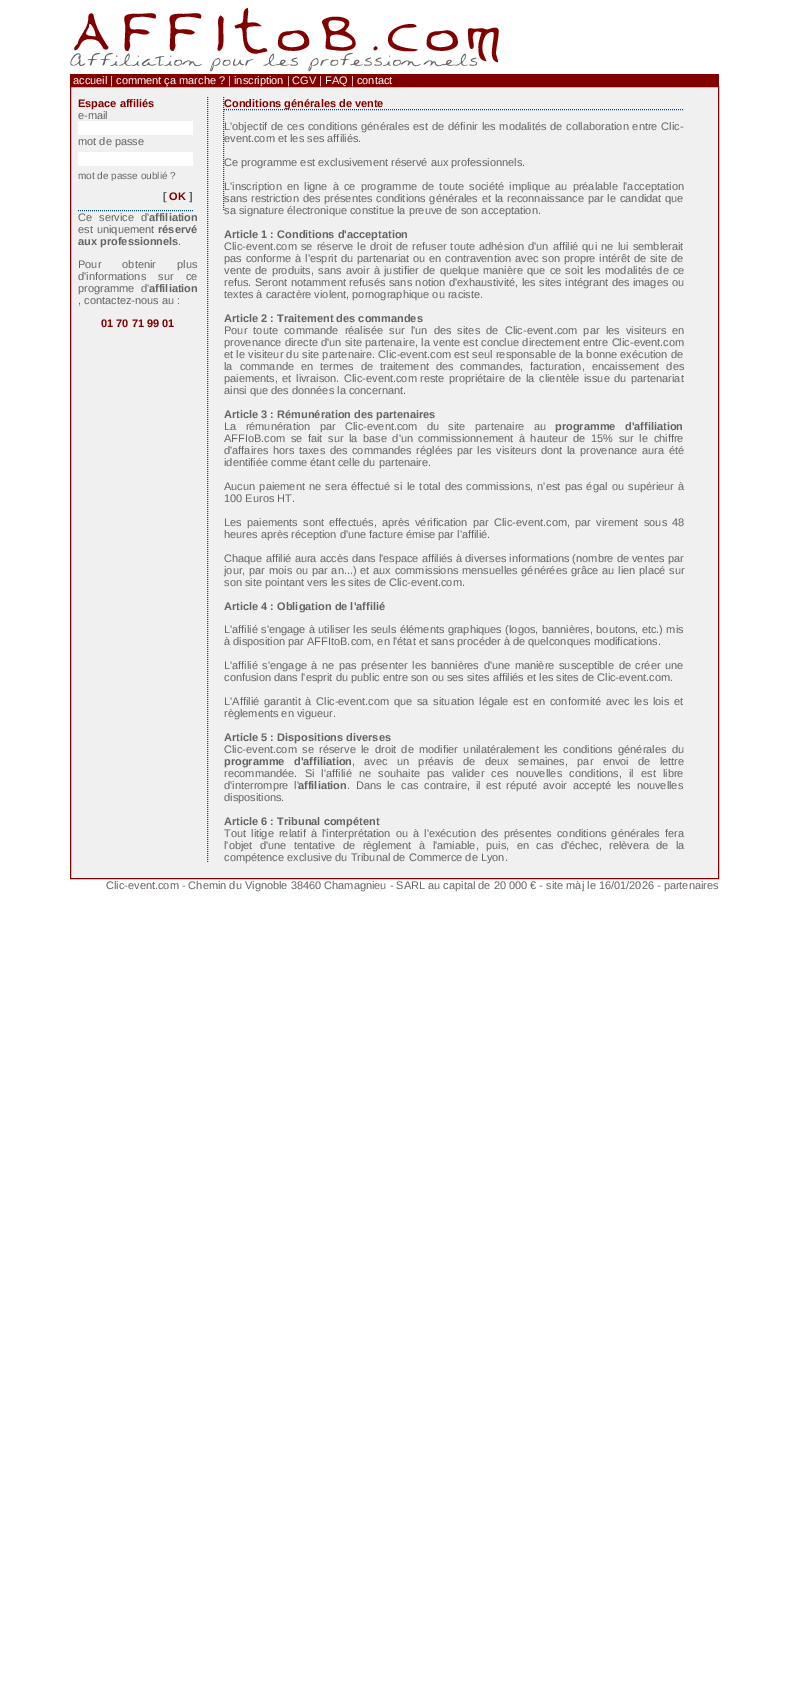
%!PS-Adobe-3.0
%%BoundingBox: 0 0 789 1688
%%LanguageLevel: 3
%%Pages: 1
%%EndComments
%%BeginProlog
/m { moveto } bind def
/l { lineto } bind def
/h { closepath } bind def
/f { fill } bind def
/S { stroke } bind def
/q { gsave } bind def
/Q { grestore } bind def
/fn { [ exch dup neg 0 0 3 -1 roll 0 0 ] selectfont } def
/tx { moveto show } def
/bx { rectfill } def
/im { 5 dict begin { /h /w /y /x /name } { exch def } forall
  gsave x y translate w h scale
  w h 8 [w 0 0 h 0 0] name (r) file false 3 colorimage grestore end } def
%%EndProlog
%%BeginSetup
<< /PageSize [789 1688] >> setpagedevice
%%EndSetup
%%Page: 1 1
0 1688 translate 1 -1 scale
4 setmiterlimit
1 setgray
0 0 789 1688 bx
(image0.raw) 70 8 429 64 im
0.51 0 0 setrgbcolor
70 74 649 12 bx
0.941 setgray
70.5 86.5 m 718.5 86.5 l 718.5 878.5 l 70.5 878.5 l h q f Q
0.51 0 0 setrgbcolor
S
/LiberationSans-Regular 11 fn
1 setgray
(accueil | comment ça marche ? | inscription | CGV | FAQ | contact) 73 84 tx
/LiberationSans-Bold 11 fn
0.51 0 0 setrgbcolor
(Espace affiliés) 78 107 tx
/LiberationSans-Regular 11 fn
0.392 setgray
(e-mail) 78 119 tx
1 setgray
78 121 115 14 bx
0.392 setgray
(mot de passe) 78 145 tx
1 setgray
78 152 115 14 bx
/LiberationSans-Regular 10 fn
0.392 setgray
(mot de passe oublié ?) 78 179 tx
0 0.271 0.549 setrgbcolor
[1 1] 0 setdash
78 210.5 m 193 210.5 l S
/LiberationSans-Bold 11 fn
0.392 setgray
([) 163 200 tx
0.51 0 0 setrgbcolor
(OK) 169 200 tx
0.392 setgray
(]) 189 200 tx
0 0.271 0.549 setrgbcolor
207.5 97 m 207.5 863 l S
223.5 97 m 223.5 211 l S
224 109.5 m 684 109.5 l S
0.51 0 0 setrgbcolor
(Conditions générales de vente) 224 107 tx
/LiberationSans-Regular 11 fn
0.392 setgray
224 130 m 0.75 0 32 (L'objectif de ces conditions générales est de définir les modalités de collaboration entre Clic-) widthshow
(event.com et les ses affiliés.) 224 142 tx
(Ce programme est exclusivement réservé aux professionnels.) 224 166 tx
224 190 m 2.1 0 32 (L'inscription en ligne à ce programme de toute société implique au préalable l'acceptation) widthshow
224 202 m 0.75 0 32 (sans restriction des présentes conditions générales et la reconnaissance par le candidat que) widthshow
(sa signature électronique constitue la preuve de son acceptation.) 224 214 tx
/LiberationSans-Bold 11 fn
(Article 1 : Conditions d'acceptation) 224 238 tx
/LiberationSans-Regular 11 fn
224 250 m 1.1 0 32 (Clic-event.com se réserve le droit de refuser toute adhésion d'un affilié qui ne lui semblerait) widthshow
224 262 m 0.8 0 32 (pas conforme à l'esprit du partenariat ou en contravention avec son propre intérêt de site de) widthshow
224 274 m 1.2 0 32 (vente de produits, sans avoir à justifier de quelque manière que ce soit les modalités de ce) widthshow
224 286 m 0.4 0 32 (refus. Seront notamment refusés sans notion d'exhaustivité, les sites intégrant des images ou) widthshow
(textes à caractère violent, pornographique ou raciste.) 224 298 tx
/LiberationSans-Bold 11 fn
(Article 2 : Traitement des commandes) 224 322 tx
/LiberationSans-Regular 11 fn
224 334 m 3.1 0 32 (Pour toute commande réalisée sur l'un des sites de Clic-event.com par les visiteurs en) widthshow
224 346 m 0.25 0 32 (provenance directe d'un site partenaire, la vente est conclue directement entre Clic-event.com) widthshow
224 358 m 0.25 0 32 (et le visiteur du site partenaire. Clic-event.com est seul responsable de la bonne exécution de) widthshow
224 370 m 3.9 0 32 (la commande en termes de traitement des commandes, facturation, encaissement des) widthshow
224 382 m 1.5 0 32 (paiements, et livraison. Clic-event.com) widthshow
420 382 m 1.5 0 32 (reste propriétaire de la clientèle issue du partenariat) widthshow
(ainsi que des données la concernant.) 224 394 tx
/LiberationSans-Bold 11 fn
(Article 3 : Rémunération des partenaires) 224 418 tx
/LiberationSans-Regular 11 fn
224 430 m 6.25 0 32 (La rémunération par Clic-event.com du site partenaire au) widthshow
/LiberationSans-Bold 11 fn
555 430 m 6.25 0 32 (programme d'affiliation) widthshow
/LiberationSans-Regular 11 fn
224 442 m 2.5 0 32 (AFFIoB.com se fait sur la base d'un commissionnement à hauteur de 15% sur le chiffre) widthshow
224 454 m 1.5 0 32 (d'affaires hors taxes des commandes réglées par les visiteurs dont la provenance aura été) widthshow
(identifiée comme étant celle du partenaire.) 224 466 tx
224 490 m 1.2 0 32 (Aucun paiement ne sera éffectué si le total des commissions, n'est pas égal ou supérieur à) widthshow
(100 Euros HT.) 224 502 tx
224 526 m 2.25 0 32 (Les paiements sont effectués, après vérification par Clic-event.com, par virement sous 48) widthshow
(heures après réception d'une facture émise par l'affilié.) 224 538 tx
224 562 m 0.1 0 32 (Chaque affilié aura accès dans l'espace affiliés à diverses informations \(nombre de ventes par) widthshow
224 574 m 0.7 0 32 (jour, par mois ou par an...\) et aux commissions mensuelles générées grâce au lien placé sur) widthshow
(son site pointant vers les sites de Clic-event.com.) 224 586 tx
/LiberationSans-Bold 11 fn
(Article 4 : Obligation de l'affilié) 224 610 tx
/LiberationSans-Regular 11 fn
224 633 m 0.25 0 32 (L'affilié s'engage à utiliser les seuls éléments graphiques \(logos, bannières, boutons, etc.\) mis) widthshow
(à disposition par AFFItoB.com, en l'état et sans procéder à de quelconques modifications.) 224 645 tx
224 669 m 1.5 0 32 (L'affilié s'engage à ne pas présenter les bannières d'une manière susceptible de créer une) widthshow
(confusion dans l'esprit du public entre son ou ses sites affiliés et les sites de Clic-event.com.) 224 681 tx
224 705 m 1.75 0 32 (L'Affilié garantit à Clic-event.com que sa situation légale est en conformité avec les lois et) widthshow
(règlements en vigueur.) 224 717 tx
/LiberationSans-Bold 11 fn
(Article 5 : Dispositions diverses) 224 741 tx
/LiberationSans-Regular 11 fn
224 753 m 2.25 0 32 (Clic-event.com se réserve le droit de modifier unilatéralement les conditions générales du) widthshow
/LiberationSans-Bold 11 fn
224 765 m 6.25 0 32 (programme d'affiliation) widthshow
/LiberationSans-Regular 11 fn
352 765 m 6.25 0 32 (, avec un préavis de deux semaines, par envoi de lettre) widthshow
224 777 m 4.1 0 32 (recommandée. Si l'affilié ne souhaite pas valider ces nouvelles conditions, il est libre) widthshow
224 789 m 2.6 0 32 (d'interrompre l') widthshow
/LiberationSans-Bold 11 fn
(affiliation) 298 789 tx
/LiberationSans-Regular 11 fn
347 789 m 2.6 0 32 (. Dans le cas contraire, il est réputé avoir accepté les nouvelles) widthshow
(dispositions.) 224 801 tx
/LiberationSans-Bold 11 fn
(Article 6 : Tribunal compétent) 224 825 tx
/LiberationSans-Regular 11 fn
224 837 m 2 0 32 (Tout litige relatif à l'interprétation ou à l'exécution des présentes conditions générales fera) widthshow
224 849 m 4.4 0 32 (l'objet d'une tentative de règlement à l'amiable, puis, en cas d'échec, relèvera de la) widthshow
(compétence exclusive du Tribunal de Commerce de Lyon.) 224 861 tx
78 221 m 3.9 0 32 (Ce service d') widthshow
/LiberationSans-Bold 11 fn
(affiliation) 149 221 tx
/LiberationSans-Regular 11 fn
78 233 m 1 0 32 (est uniquement) widthshow
/LiberationSans-Bold 11 fn
(réservé) 158 233 tx
(aux professionnels) 78 245 tx
/LiberationSans-Regular 11 fn
(.) 178 245 tx
78 268 m 18 0 32 (Pour obtenir plus) widthshow
78 280 m 9 0 32 (d'informations sur ce) widthshow
78 292 m 4 0 32 (programme d') widthshow
/LiberationSans-Bold 11 fn
(affiliation) 149 292 tx
/LiberationSans-Regular 11 fn
(, contactez-nous au :) 78 304 tx
/LiberationSans-Bold 11 fn
0.51 0 0 setrgbcolor
(01 70 71 99 01) 101 327 tx
/LiberationSans-Regular 11 fn
0.392 setgray
(Clic-event.com - Chemin du Vignoble 38460 Chamagnieu - SARL au capital de 20 000 € - site màj le 16/01/2026 - partenaires) 106 889 tx
showpage
%%EOF
